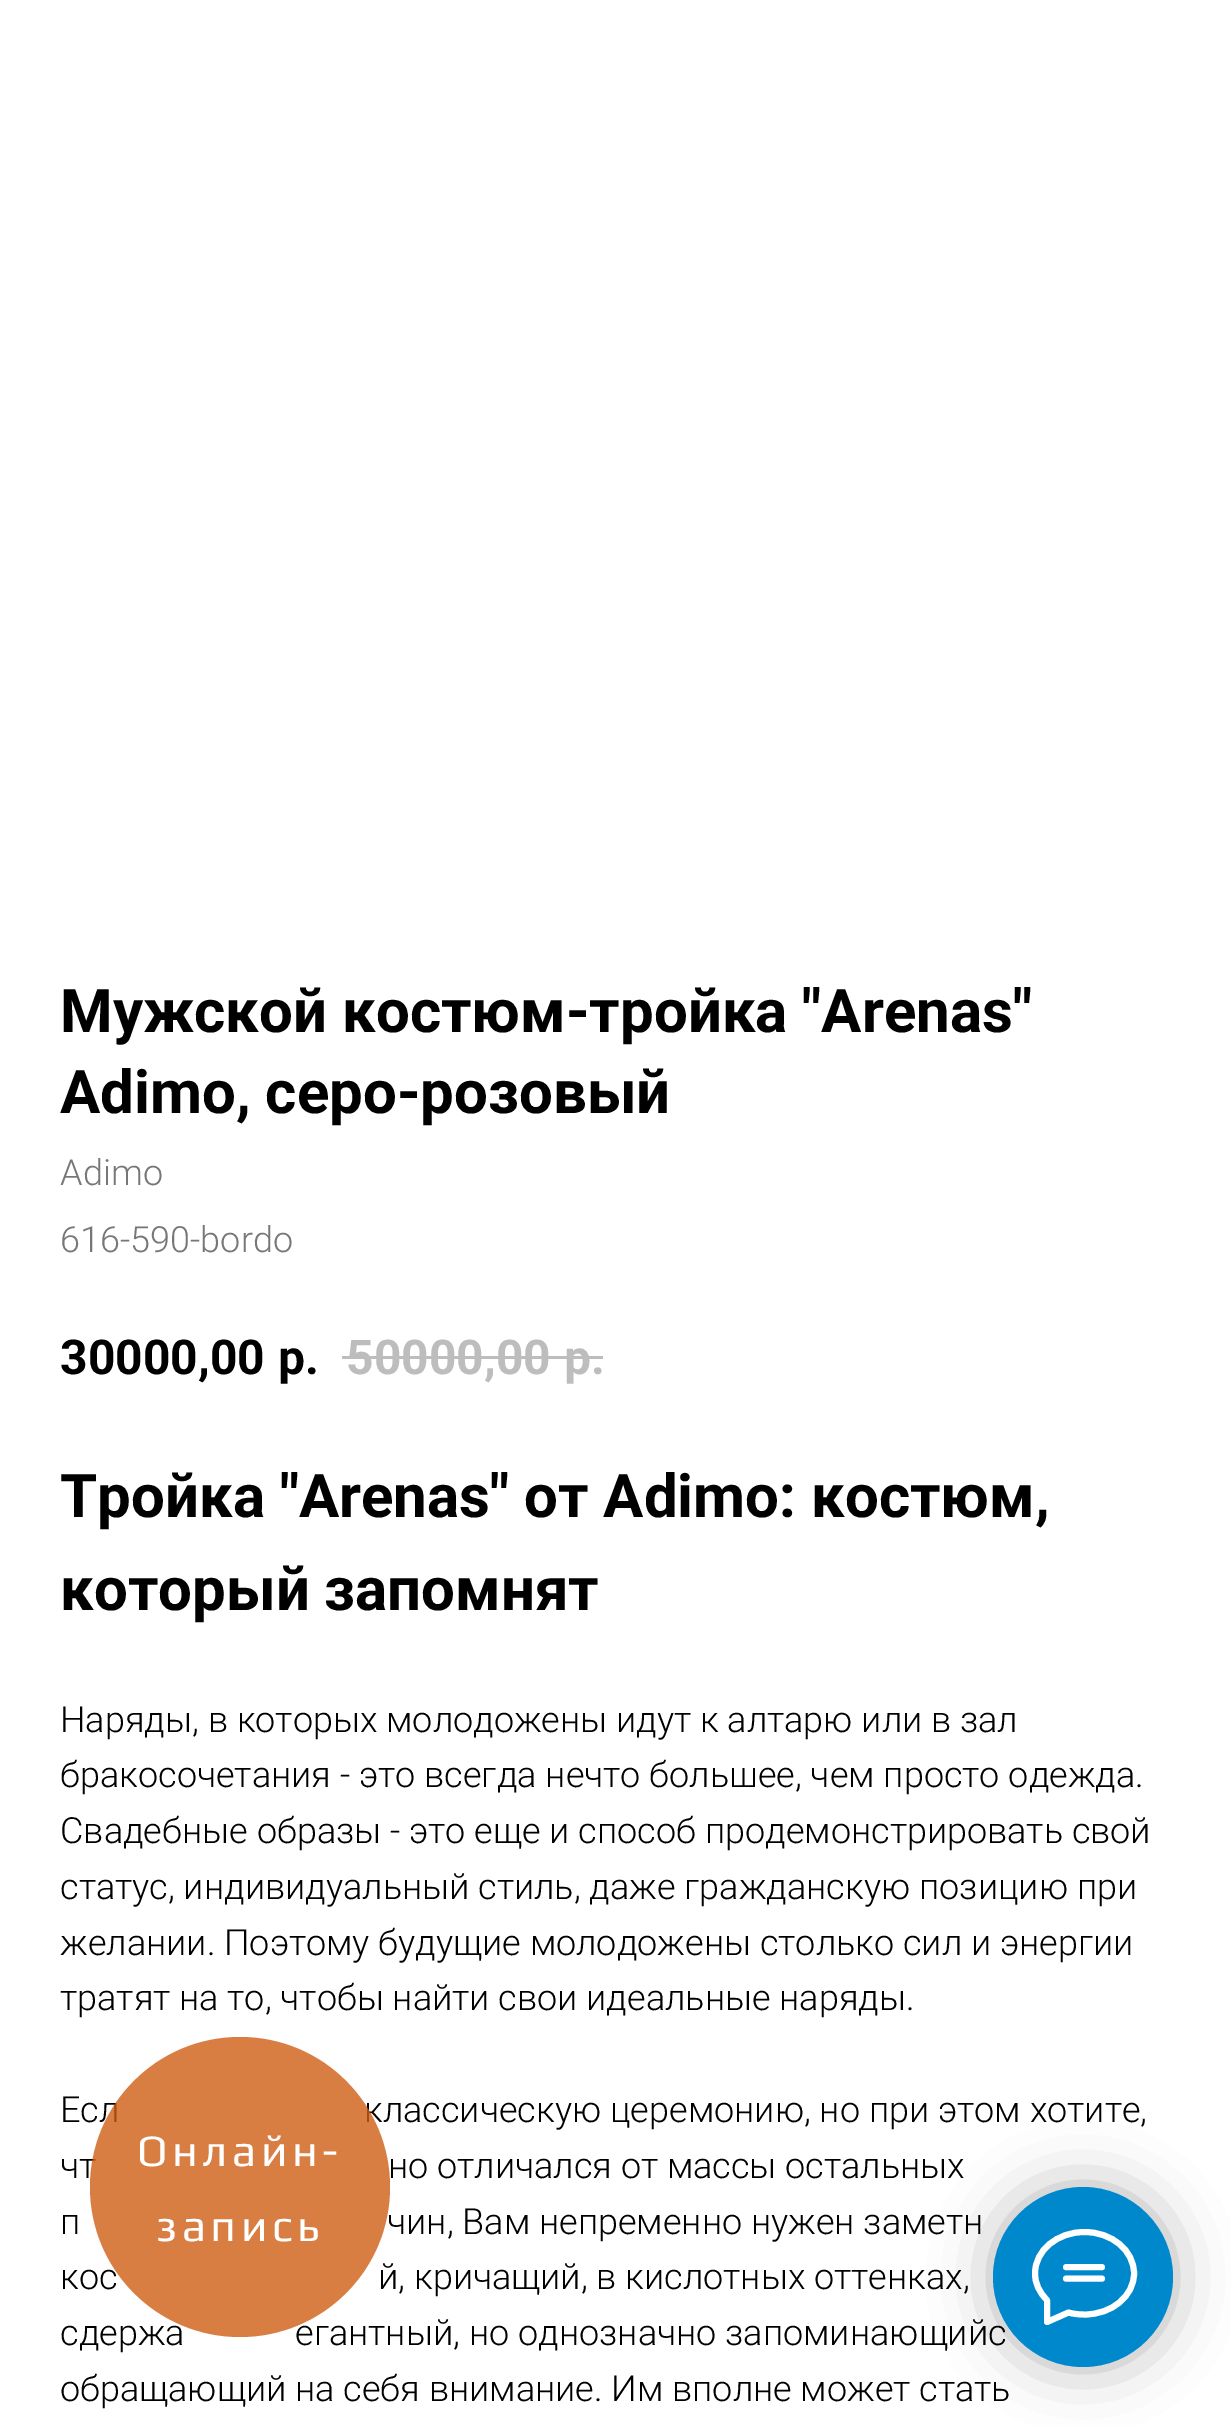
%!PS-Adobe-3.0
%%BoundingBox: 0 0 1231 2425
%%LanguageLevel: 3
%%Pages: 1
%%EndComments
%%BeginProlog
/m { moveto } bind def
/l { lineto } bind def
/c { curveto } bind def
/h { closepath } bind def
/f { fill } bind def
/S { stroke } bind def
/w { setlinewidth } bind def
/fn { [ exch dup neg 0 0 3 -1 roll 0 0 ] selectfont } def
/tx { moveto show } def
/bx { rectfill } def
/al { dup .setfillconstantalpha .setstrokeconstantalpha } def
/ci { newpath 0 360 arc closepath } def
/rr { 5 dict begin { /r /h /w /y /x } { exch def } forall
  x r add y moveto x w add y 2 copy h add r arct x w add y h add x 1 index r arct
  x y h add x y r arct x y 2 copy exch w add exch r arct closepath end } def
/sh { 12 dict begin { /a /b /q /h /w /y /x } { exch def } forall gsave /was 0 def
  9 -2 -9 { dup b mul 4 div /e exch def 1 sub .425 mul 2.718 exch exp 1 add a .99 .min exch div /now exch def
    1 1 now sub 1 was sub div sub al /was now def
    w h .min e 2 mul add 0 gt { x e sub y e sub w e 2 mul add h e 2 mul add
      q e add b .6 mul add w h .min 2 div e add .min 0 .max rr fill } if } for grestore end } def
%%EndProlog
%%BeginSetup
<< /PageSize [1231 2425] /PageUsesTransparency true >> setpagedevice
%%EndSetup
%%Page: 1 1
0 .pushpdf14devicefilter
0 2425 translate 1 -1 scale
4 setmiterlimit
1 setgray
0 0 1231 2425 bx
/Roboto-Bold 60 fn
0 setgray
(Мужской костюм-тройка "Arenas") 60 1032 tx
(Adimo, серо-розовый) 60 1113 tx
/Roboto-Light 36 fn
0.467 setgray
(Adimo) 60 1185 tx
(616-590-bordo) 60 1252 tx
/Roboto-Bold 48 fn
0 setgray
(30000,00) 60 1374 tx
(р.) 278 1374 tx
0.741 setgray
(50000,00) 346 1374 tx
(р.) 564 1374 tx
342 1356 261 3 bx
/Roboto-Bold 60 fn
0 setgray
(Тройка "Arenas" от Adimo: костюм,) 60 1517 tx
(который запомнят) 60 1610 tx
/Roboto-Light 36 fn
(Наряды, в которых молодожены идут к алтарю или в зал) 60 1732 tx
(бракосочетания - это всегда нечто большее, чем просто одежда.) 60 1787 tx
(Свадебные образы - это еще и способ продемонстрировать свой) 60 1843 tx
(статус, индивидуальный стиль, даже гражданскую позицию при) 60 1899 tx
(желании. Поэтому будущие молодожены столько сил и энергии) 60 1955 tx
(тратят на то, чтобы найти свои идеальные наряды.) 60 2010 tx
(Есл) 60 2122 tx
(классическую церемонию, но при этом хотите,) 364 2122 tx
(чт) 60 2178 tx
(но отличался от массы остальных) 388 2178 tx
(п) 60 2234 tx
(чин, Вам непременно нужен заметн) 387 2234 tx
(кос) 60 2289 tx
(й, кричащий, в кислотных оттенках,) 378 2289 tx
(сдержа) 60 2345 tx
(егантный, но однозначно запоминающийс) 295 2345 tx
(обращающий на себя внимание. Им вполне может стать) 60 2401 tx
993 2187 180 180 90 30 0.3 sh
0 0.533 0.8 setrgbcolor
1083 2277 90 ci f
1 setgray
6 w
1 setlinecap
1 setlinejoin
1066 2267 m 1102 2267 l 1066 2278.5 m 1102 2278.5 l 1046.5 2299.5 m 1039.5 2292.5 1035 2283.5 1035 2273.5 c 1035 2250.5 1057 2232 1084.5 2232 c 1112 2232 1134 2250.5 1134 2273.5 c 1134 2296 1112 2314.5 1084.5 2314.5 c 1079 2314.5 1073.5 2314 1068.5 2312.5 c 1047 2322 l 1047 2300.5 l h S
0.8 al
0.808 0.369 0.075 setrgbcolor
240 2187 150 ci f
/Play-Regular 45 fn
1 al
1 setgray
137 2166 m 4.5 0 (Онлайн-) ashow
156 2241 m 4.5 0 (запись) ashow
.poppdf14devicefilter showpage
%%EOF
